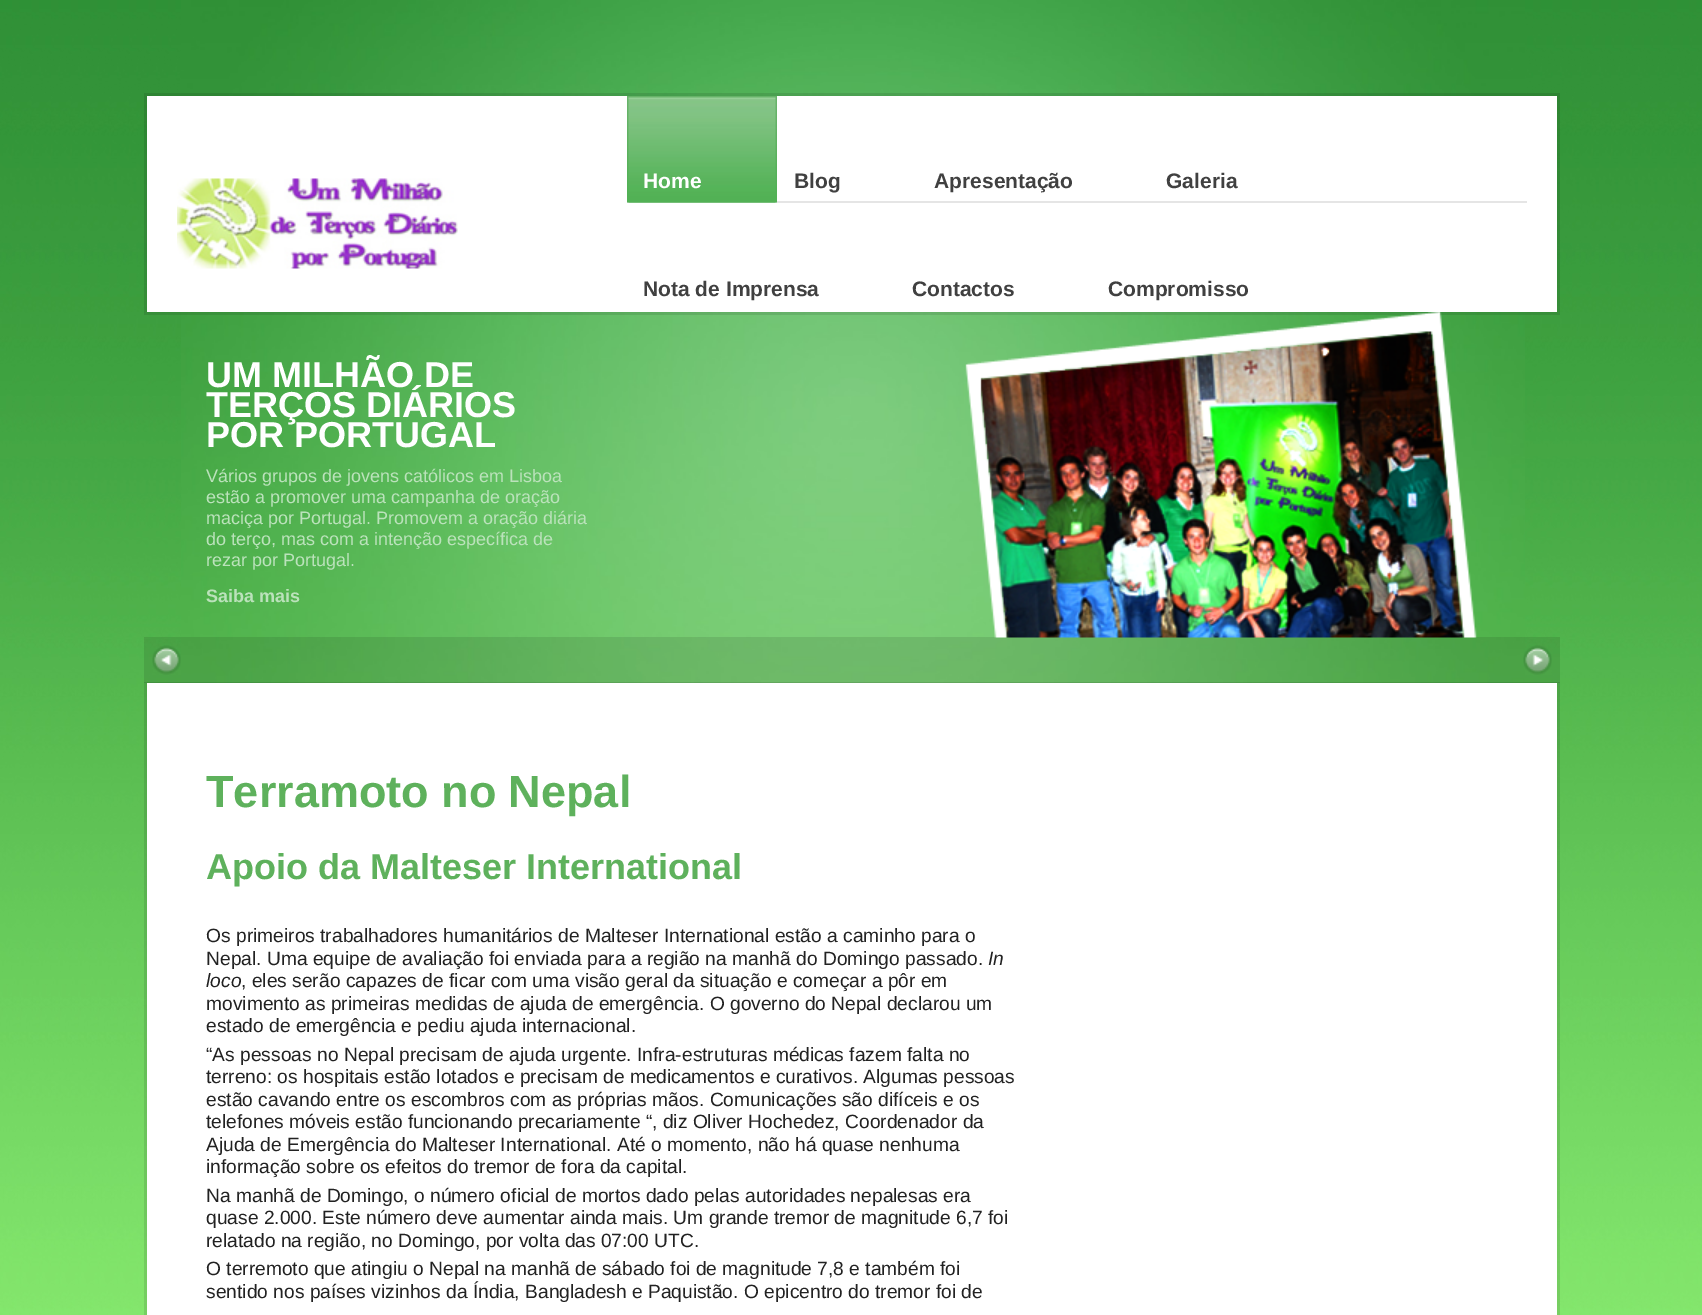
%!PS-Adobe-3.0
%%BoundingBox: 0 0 1702 1315
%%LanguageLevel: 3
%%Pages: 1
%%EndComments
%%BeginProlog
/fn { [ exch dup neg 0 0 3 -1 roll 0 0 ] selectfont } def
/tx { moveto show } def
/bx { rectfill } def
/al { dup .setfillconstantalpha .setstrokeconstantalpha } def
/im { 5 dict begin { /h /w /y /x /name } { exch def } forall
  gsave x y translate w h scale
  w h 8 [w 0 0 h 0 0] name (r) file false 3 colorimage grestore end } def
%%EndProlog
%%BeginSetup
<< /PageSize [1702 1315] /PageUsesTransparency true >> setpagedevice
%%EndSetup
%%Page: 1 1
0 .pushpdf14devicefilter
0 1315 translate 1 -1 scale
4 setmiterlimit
1 setgray
0 0 1702 1315 bx
(image0.raw) 0 0 1702 1315 im
(image1.raw) 181 0 1344 683 im
0.1 al
0 setgray
144 93 1416 222 bx
1 al
1 setgray
147 96 1410 216 bx
(image2.raw) 177 178 281 91 im
0.898 setgray
627 201 900 2 bx
(image3.raw) 627 96 150 107 im
(image4.raw) 628 97 148 106 im
/LiberationSans-Bold 21 fn
1 setgray
(Home) 643 188 tx
0.251 setgray
(Blog) 794 188 tx
(Apresentação) 934 188 tx
(Galeria) 1166 188 tx
(Nota de Imprensa) 643 296 tx
(Contactos) 912 296 tx
(Compromisso) 1108 296 tx
/LiberationSans-Bold 36 fn
1 setgray
(UM MILHÃO DE) 206 387 tx
(TERÇOS DIÁRIOS) 206 417 tx
(POR PORTUGAL) 206 447 tx
/LiberationSans-Regular 18 fn
0.733 0.886 0.733 setrgbcolor
(Vários grupos de jovens católicos em Lisboa) 206 482 tx
(estão a promover uma campanha de oração) 206 503 tx
(maciça por Portugal. Promovem a oração diária) 206 524 tx
(do terço, mas com a intenção específica de) 206 545 tx
(rezar por Portugal.) 206 566 tx
/LiberationSans-Bold 18 fn
(Saiba mais) 206 602 tx
0.1 al
0 setgray
144 637 1416 46 bx
1 al
(image5.raw) 965 312 512 326 im
(image6.raw) 152 645 29 30 im
(image7.raw) 1523 645 29 30 im
0.1 al
144 682 1416 633 bx
1 al
1 setgray
147 683 1410 632 bx
/LiberationSans-Bold 45 fn
0.369 0.694 0.361 setrgbcolor
(Terramoto no Nepal) 206 807 tx
/LiberationSans-Bold 36 fn
(Apoio da Malteser International) 206 879 tx
/LiberationSans-Regular 19.2 fn
0.133 setgray
(Os primeiros trabalhadores humanitários de Malteser International estão a caminho para o) 206 942 tx
(Nepal. Uma equipe de avaliação foi enviada para a região na manhã do Domingo passado.) 206 965 tx
/LiberationSans-Italic 19.2 fn
(In) 988 965 tx
(loco) 206 987 tx
/LiberationSans-Regular 19.2 fn
(, eles serão capazes de ficar com uma visão geral da situação e começar a pôr em) 241 987 tx
(movimento as primeiras medidas de ajuda de emergência. O governo do Nepal declarou um) 206 1010 tx
(estado de emergência e pediu ajuda internacional.) 206 1032 tx
(“As pessoas no Nepal precisam de ajuda urgente. Infra-estruturas médicas fazem falta no) 206 1061 tx
(terreno: os hospitais estão lotados e precisam de medicamentos e curativos. Algumas pessoas) 206 1083 tx
(estão cavando entre os escombros com as próprias mãos. Comunicações são difíceis e os) 206 1106 tx
(telefones móveis estão funcionando precariamente “, diz Oliver Hochedez, Coordenador da) 206 1128 tx
(Ajuda de Emergência do Malteser International. Até o momento, não há quase nenhuma) 206 1151 tx
(informação sobre os efeitos do tremor de fora da capital.) 206 1173 tx
(Na manhã de Domingo, o número oficial de mortos dado pelas autoridades nepalesas era) 206 1202 tx
(quase 2.000. Este número deve aumentar ainda mais. Um grande tremor de magnitude 6,7 foi) 206 1224 tx
(relatado na região, no Domingo, por volta das 07:00 UTC.) 206 1247 tx
(O terremoto que atingiu o Nepal na manhã de sábado foi de magnitude 7,8 e também foi) 206 1275 tx
(sentido nos países vizinhos da Índia, Bangladesh e Paquistão. O epicentro do tremor foi de) 206 1298 tx
.poppdf14devicefilter showpage
%%EOF
